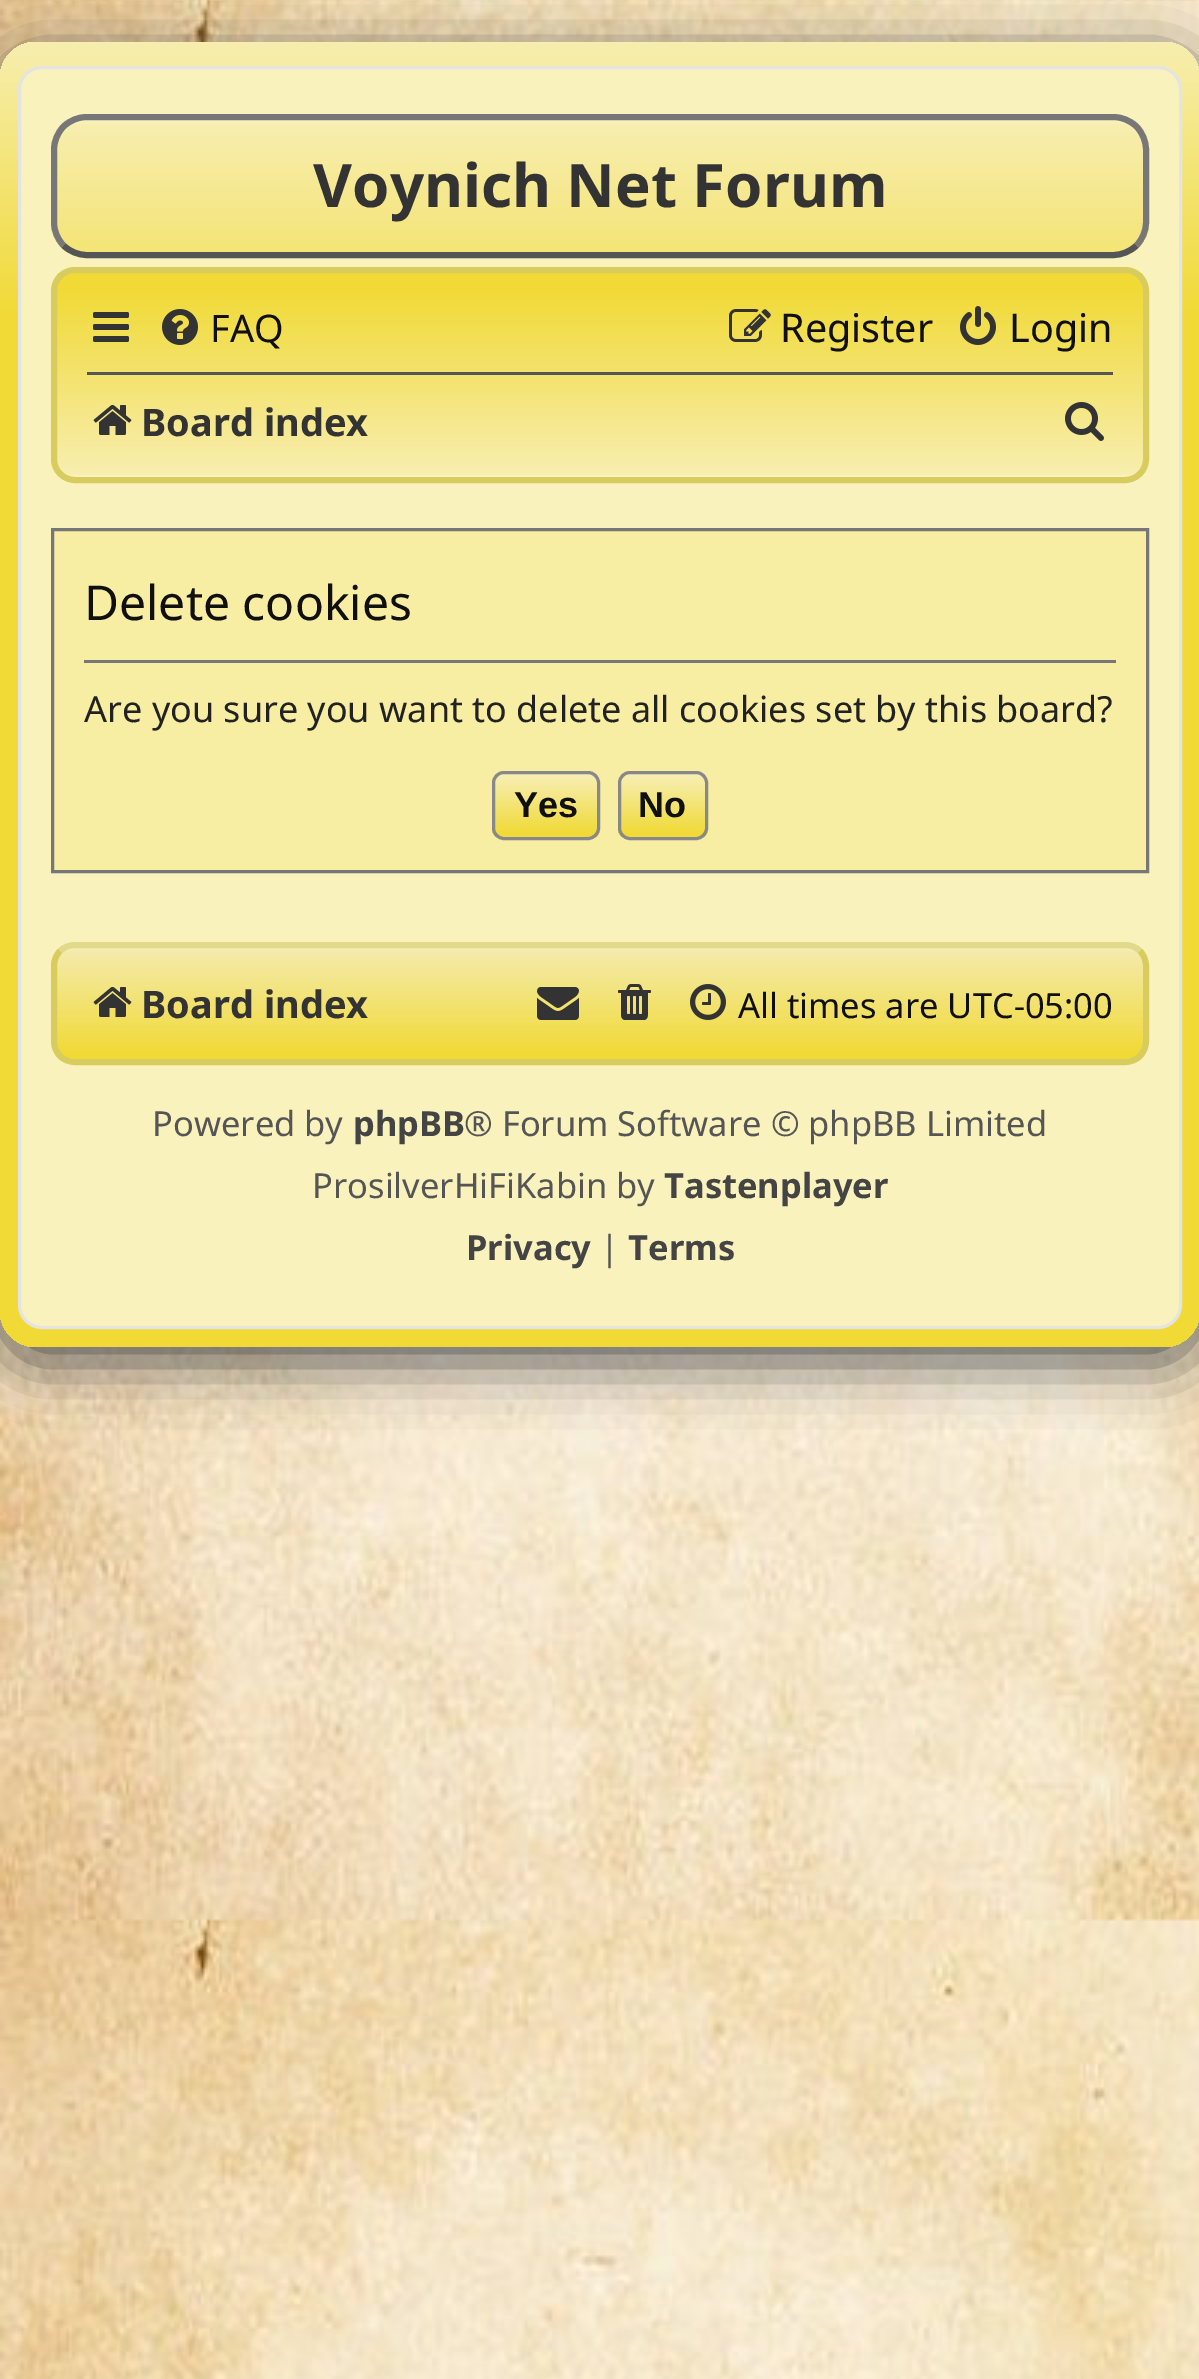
%!PS-Adobe-3.0
%%BoundingBox: 0 0 1199 2379
%%LanguageLevel: 3
%%Pages: 1
%%EndComments
%%BeginProlog
/m { moveto } bind def
/l { lineto } bind def
/c { curveto } bind def
/h { closepath } bind def
/f { fill } bind def
/S { stroke } bind def
/q { gsave } bind def
/Q { grestore } bind def
/w { setlinewidth } bind def
/fn { [ exch dup neg 0 0 3 -1 roll 0 0 ] selectfont } def
/tx { moveto show } def
/bx { rectfill } def
/al { dup .setfillconstantalpha .setstrokeconstantalpha } def
/rr { 5 dict begin { /r /h /w /y /x } { exch def } forall
  x r add y moveto x w add y 2 copy h add r arct x w add y h add x 1 index r arct
  x y h add x y r arct x y 2 copy exch w add exch r arct closepath end } def
/sh { 12 dict begin { /a /b /q /h /w /y /x } { exch def } forall gsave /was 0 def
  9 -2 -9 { dup b mul 4 div /e exch def 1 sub .425 mul 2.718 exch exp 1 add a .99 .min exch div /now exch def
    1 1 now sub 1 was sub div sub al /was now def
    w h .min e 2 mul add 0 gt { x e sub y e sub w e 2 mul add h e 2 mul add
      q e add b .6 mul add w h .min 2 div e add .min 0 .max rr fill } if } for grestore end } def
/im { 5 dict begin { /h /w /y /x /name } { exch def } forall
  gsave x y translate w h scale
  w h 8 [w 0 0 h 0 0] name (r) file false 3 colorimage grestore end } def
%%EndProlog
%%BeginSetup
<< /PageSize [1199 2379] /PageUsesTransparency true >> setpagedevice
%%EndSetup
%%Page: 1 1
0 .pushpdf14devicefilter
0 2379 translate 1 -1 scale
4 setmiterlimit
1 setgray
0 0 1199 2379 bx
(image0.raw) 0 0 1199 2379 im
(image1.raw) 0 42 1199 1305 im
0.333 setgray
0 57 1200 1305 36 30 1 sh
q 0 42 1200 1305 36 rr clip newpath
<< /ShadingType 2 /ColorSpace /DeviceRGB /Coords [600 42 600 1347] /Extend [true true] /Function << /FunctionType 3 /Domain [0 1] /Functions [<< /FunctionType 2 /Domain [0 1] /C0 [0.969 0.933 0.686] /C1 [0.945 0.855 0.212] /N 1 >> << /FunctionType 2 /Domain [0 1] /C0 [0.945 0.855 0.212] /C1 [0.945 0.855 0.212] /N 1 >>] /Bounds [0.21] /Encode [0 1 0 1] >> >> shfill Q
0.98 0.949 0.737 setrgbcolor
19.5 67.5 1161 1260 22.5 rr q f Q
0.894 setgray
3 w
S
q
51 114 1098 144 36 rr clip newpath
q 51 120 m 1149 120 l 1149 252 l 51 252 l h clip newpath
<< /ShadingType 2 /ColorSpace /DeviceRGB /Coords [600 120 600 396] /Extend [true true] /Function << /FunctionType 3 /Domain [0 1] /Functions [<< /FunctionType 2 /Domain [0 1] /C0 [0.976 0.953 0.753] /C1 [0.969 0.933 0.686] /N 1 >> << /FunctionType 2 /Domain [0 1] /C0 [0.969 0.933 0.686] /C1 [0.945 0.855 0.212] /N 1 >>] /Bounds [0.02] /Encode [0 1 0 1] >> >> shfill Q
Q
0.333 setgray
6 w
1136.5 245.5 m 1130 251.5 1122 255 1113 255 c 87 255 l 78 255 70 251.5 63.5 245.5 c S
0.467 setgray
63.5 245.5 m 57.5 239 54 231 54 222 c 54 150 l 54 141 57.5 133 63.5 126.5 c 70 120.5 78 117 87 117 c 1113 117 l 1122 117 1130 120.5 1136.5 126.5 c 1142.5 133 1146 141 1146 150 c 1146 222 l 1146 231 1142.5 239 1136.5 245.5 c S
/NotoSans-Bold 60 fn
0.2 setgray
(Voynich Net Forum) 313 207 tx
q
51 267 1098 216 24 rr clip newpath
q 57 273 m 1143 273 l 1143 477 l 57 477 l h clip newpath
<< /ShadingType 2 /ColorSpace /DeviceRGB /Coords [600 273 600 477] /Extend [true true] /Function << /FunctionType 3 /Domain [0 1] /Functions [<< /FunctionType 2 /Domain [0 1] /C0 [0.945 0.855 0.212] /C1 [0.945 0.855 0.212] /N 1 >> << /FunctionType 2 /Domain [0 1] /C0 [0.945 0.855 0.212] /C1 [0.969 0.933 0.686] /N 1 >> << /FunctionType 2 /Domain [0 1] /C0 [0.969 0.933 0.686] /C1 [0.976 0.953 0.753] /N 1 >>] /Bounds [0.08 0.98] /Encode [0 1 0 1 0 1] >> >> shfill Q
Q
0.847 0.8 0.373 setrgbcolor
54 270 1092 210 21 rr S
(image2.raw) 93 312 36 30 im
(image3.raw) 162 309 36 36 im
/NotoSans-Regular 38 fn
0.063 setgray
(FAQ) 210 342 tx
(image4.raw) 729 309 42 33 im
/NotoSans-Regular 39.5 fn
(Register) 780 342 tx
(image5.raw) 960 306 36 39 im
(Login) 1009 342 tx
0.333 setgray
87 372 1026 3 bx
(image6.raw) 93 404 39 31 im
/NotoSans-Bold 38 fn
0.2 setgray
(Board index) 141 436 tx
(image7.raw) 1065 402 39 39 im
0.969 0.929 0.639 setrgbcolor
52.5 529.5 m 1147.5 529.5 l 1147.5 871.5 l 52.5 871.5 l h q f Q
0.467 setgray
3 w
S
84 660 1032 3 bx
/NotoSans-Regular 48 fn
0.063 setgray
(Delete cookies) 84 620 tx
/NotoSans-Regular 36 fn
0.133 setgray
(Are you sure you want to delete all cookies set by this board?) 84 722 tx
q
492 771 108 69 12 rr clip newpath
q 492 774 m 600 774 l 600 837 l 492 837 l h clip newpath
<< /ShadingType 2 /ColorSpace /DeviceRGB /Coords [546 774 546 837] /Extend [true true] /Function << /FunctionType 3 /Domain [0 1] /Functions [<< /FunctionType 2 /Domain [0 1] /C0 [0.969 0.937 0.718] /C1 [0.945 0.855 0.212] /N 1 >> << /FunctionType 2 /Domain [0 1] /C0 [0.945 0.855 0.212] /C1 [0.945 0.855 0.212] /N 1 >>] /Bounds [0.95] /Encode [0 1 0 1] >> >> shfill Q
Q
0.533 setgray
493.5 772.5 105 66 10.5 rr S
/LiberationSans-Bold 36 fn
0.063 setgray
(Yes) 514 817 tx
q
618 771 90 69 12 rr clip newpath
q 618 774 m 708 774 l 708 837 l 618 837 l h clip newpath
<< /ShadingType 2 /ColorSpace /DeviceRGB /Coords [663 774 663 837] /Extend [true true] /Function << /FunctionType 3 /Domain [0 1] /Functions [<< /FunctionType 2 /Domain [0 1] /C0 [0.969 0.937 0.718] /C1 [0.945 0.855 0.212] /N 1 >> << /FunctionType 2 /Domain [0 1] /C0 [0.945 0.855 0.212] /C1 [0.945 0.855 0.212] /N 1 >>] /Bounds [0.95] /Encode [0 1 0 1] >> >> shfill Q
Q
0.533 setgray
619.5 772.5 87 66 10.5 rr S
0.063 setgray
(No) 638 817 tx
q
51 942 1098 123 24 rr clip newpath
q 57 948 m 1143 948 l 1143 1059 l 57 1059 l h clip newpath
<< /ShadingType 2 /ColorSpace /DeviceRGB /Coords [600 948 600 1059] /Extend [true true] /Function << /FunctionType 3 /Domain [0 1] /Functions [<< /FunctionType 2 /Domain [0 1] /C0 [0.969 0.937 0.718] /C1 [0.957 0.922 0.678] /N 1 >> << /FunctionType 2 /Domain [0 1] /C0 [0.957 0.922 0.678] /C1 [0.945 0.855 0.212] /N 1 >> << /FunctionType 2 /Domain [0 1] /C0 [0.945 0.855 0.212] /C1 [0.945 0.855 0.212] /N 1 >>] /Bounds [0.02 0.95] /Encode [0 1 0 1 0 1] >> >> shfill Q
Q
0.886 0.855 0.545 setrgbcolor
6 w
60 951 m 64 947 69.5 945 75 945 c 1125 945 l 1130.5 945 1136 947 1140 951 c S
0.847 0.8 0.373 setrgbcolor
1140 951 m 1144 955 1146 960.5 1146 966 c 1146 1041 l 1146 1046.5 1144 1052 1140 1056 c 1136 1060 1130.5 1062 1125 1062 c 75 1062 l 69.5 1062 64 1060 60 1056 c 56 1052 54 1046.5 54 1041 c 54 966 l 54 960.5 56 955 60 951 c S
(image8.raw) 93 986 39 31 im
/NotoSans-Bold 38 fn
0.2 setgray
(Board index) 141 1018 tx
(image9.raw) 537 987 42 33 im
(image10.raw) 618 984 33 36 im
(image11.raw) 690 984 36 36 im
/NotoSans-Regular 34.5 fn
0.063 setgray
(All times are UTC-05:00) 738 1018 tx
0.333 setgray
(Powered by) 152 1136 tx
/NotoSans-Bold 34.5 fn
0.267 setgray
(phpBB) 353 1136 tx
/NotoSans-Regular 34.5 fn
0.333 setgray
(® Forum Software © phpBB Limited) 464 1136 tx
(ProsilverHiFiKabin by) 312 1198 tx
/NotoSans-Bold 34.5 fn
0.267 setgray
(Tastenplayer) 664 1198 tx
(Privacy) 466 1260 tx
/NotoSans-Regular 34.5 fn
0.333 setgray
(|) 600 1260 tx
/NotoSans-Bold 34.5 fn
0.267 setgray
(Terms) 628 1260 tx
.poppdf14devicefilter showpage
%%EOF
